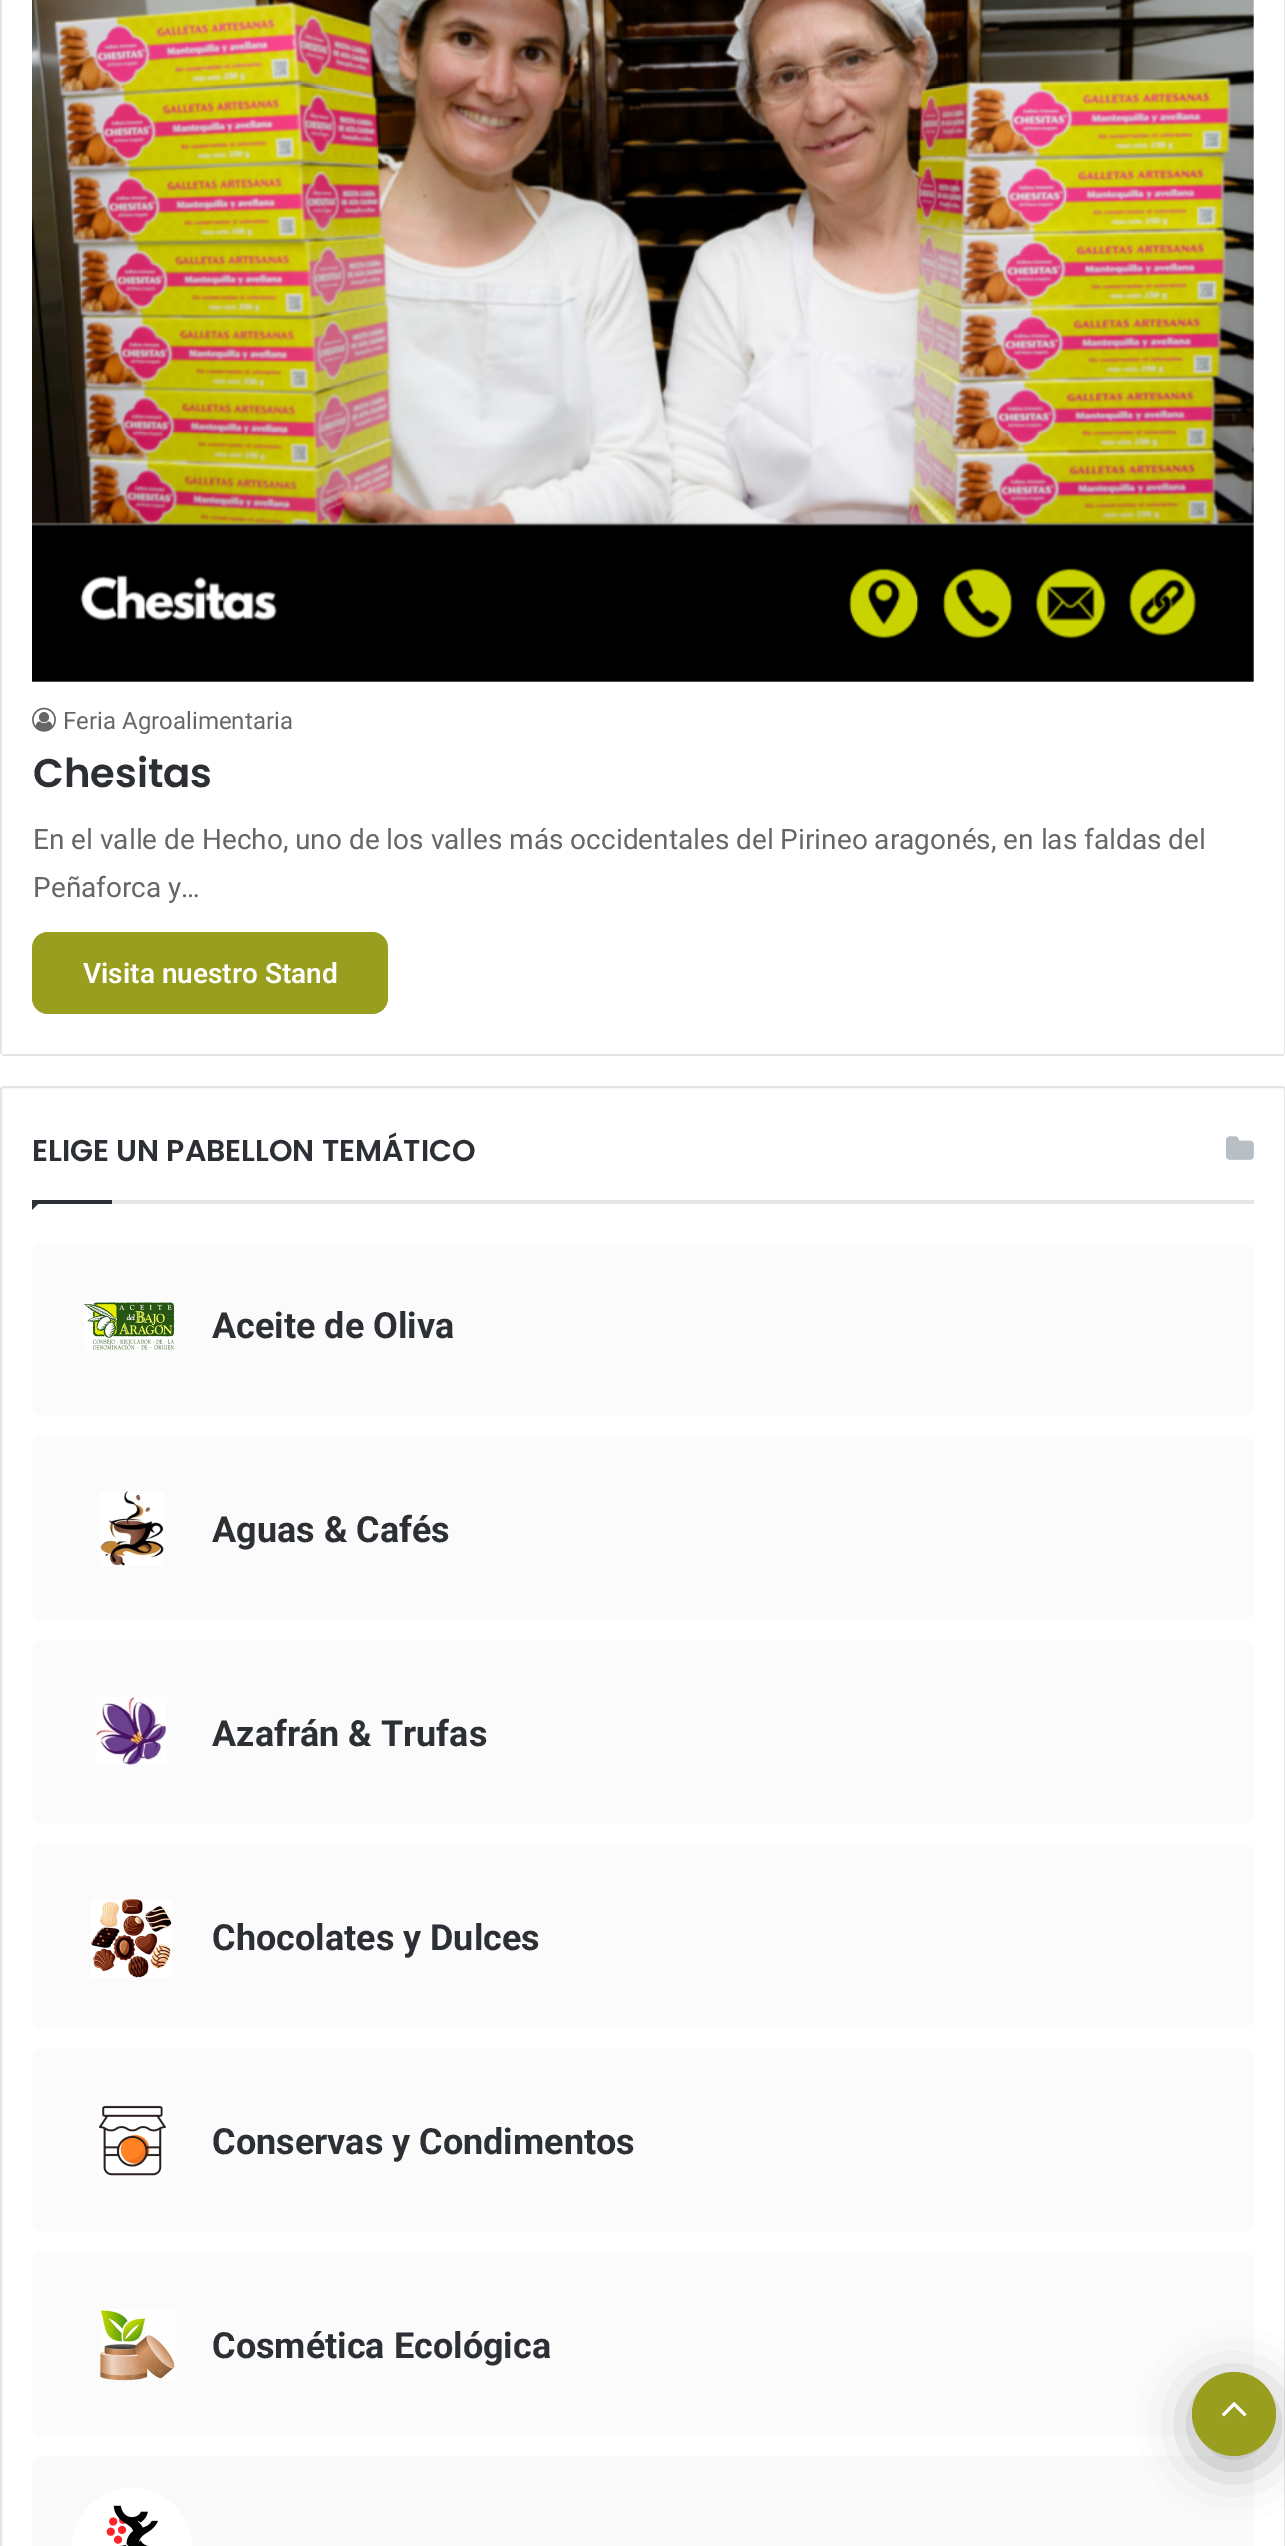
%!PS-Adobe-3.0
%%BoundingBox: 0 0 1285 2546
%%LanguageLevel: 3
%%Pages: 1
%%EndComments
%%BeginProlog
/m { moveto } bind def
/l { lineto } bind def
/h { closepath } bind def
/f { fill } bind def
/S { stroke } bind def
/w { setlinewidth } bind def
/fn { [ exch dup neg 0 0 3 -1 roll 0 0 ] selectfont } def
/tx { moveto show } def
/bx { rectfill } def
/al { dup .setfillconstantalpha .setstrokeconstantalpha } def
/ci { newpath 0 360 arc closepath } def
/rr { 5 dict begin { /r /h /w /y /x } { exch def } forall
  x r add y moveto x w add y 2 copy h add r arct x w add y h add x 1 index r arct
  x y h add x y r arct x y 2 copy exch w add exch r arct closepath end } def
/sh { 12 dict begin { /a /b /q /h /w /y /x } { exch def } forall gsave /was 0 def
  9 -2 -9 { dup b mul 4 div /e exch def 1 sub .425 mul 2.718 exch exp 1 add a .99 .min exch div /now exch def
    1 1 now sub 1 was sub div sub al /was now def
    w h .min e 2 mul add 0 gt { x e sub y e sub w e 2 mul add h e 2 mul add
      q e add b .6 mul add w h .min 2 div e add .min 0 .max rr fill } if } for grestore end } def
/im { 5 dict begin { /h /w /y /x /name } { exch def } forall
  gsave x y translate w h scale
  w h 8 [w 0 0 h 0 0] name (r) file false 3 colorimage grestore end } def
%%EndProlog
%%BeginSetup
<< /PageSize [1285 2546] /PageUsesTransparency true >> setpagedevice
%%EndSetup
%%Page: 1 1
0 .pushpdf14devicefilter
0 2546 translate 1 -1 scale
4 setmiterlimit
1 setgray
0 0 1285 2546 bx
0.902 setgray
1284 0 1 1054 bx
0.898 setgray
2 1054 1282 2 bx
0 0 2 1054 bx
(image0.raw) 32 0 1222 682 im
(image1.raw) 32 707 24 25 im
/Roboto-Regular 24 fn
0.4 setgray
(Feria Agroalimentaria) 63 729 tx
/Poppins-SemiBold 40 fn
0.173 0.184 0.204 setrgbcolor
(Chesitas) 33 787 tx
/Roboto-Regular 28 fn
0.4 setgray
(En el valle de Hecho, uno de los valles más occidentales del Pirineo aragonés, en las faldas del) 33 849 tx
(Peñaforca y…) 33 897 tx
0.6 0.62 0.118 setrgbcolor
32 932 356 82 16 rr f
/Roboto-SemiBold 28 fn
1 setgray
(Visita nuestro Stand) 83 983 tx
0.898 setgray
2 w
1 1087 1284 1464 3 rr S
0.902 setgray
112 1200 1142 4 bx
/Poppins-SemiBold 30 fn
0.173 0.184 0.204 setrgbcolor
(ELIGE UN PABELLON TEMÁTICO) 32 1161 tx
(image2.raw) 1226 1136 28 24 im
32 1200 m 42 1200 l 32 1210 l h f
32 1200 80 4 bx
0.984 setgray
32 1244 1222 172 10 rr f
(image3.raw) 84 1302 91 48 im
/Roboto-Bold 36 fn
0.173 0.184 0.204 setrgbcolor
(Aceite de Oliva) 212 1338 tx
0.984 setgray
32 1436 1222 184 10 rr f
(image4.raw) 100 1491 64 75 im
0.173 0.184 0.204 setrgbcolor
(Aguas & Cafés) 212 1542 tx
0.984 setgray
32 1640 1222 184 10 rr f
(image5.raw) 96 1697 71 68 im
0.173 0.184 0.204 setrgbcolor
(Azafrán & Trufas) 212 1746 tx
0.984 setgray
32 1844 1222 184 10 rr f
(image6.raw) 91 1899 81 79 im
0.173 0.184 0.204 setrgbcolor
(Chocolates y Dulces) 212 1950 tx
0.984 setgray
32 2048 1222 184 10 rr f
(image7.raw) 99 2105 67 71 im
0.173 0.184 0.204 setrgbcolor
(Conservas y Condimentos) 212 2154 tx
0.984 setgray
32 2252 1222 184 10 rr f
(image8.raw) 100 2310 75 71 im
0.173 0.184 0.204 setrgbcolor
(Cosmética Ecológica) 212 2358 tx
0.98 setgray
32 2456 1222 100 10 rr f
(image9.raw) 72 2488 120 58 im
0 setgray
1192 2382 84 84 42 25 0.3 sh
0.6 0.62 0.118 setrgbcolor
1234 2414 42 ci f
(image10.raw) 1221 2402 26 15 im
.poppdf14devicefilter showpage
%%EOF
